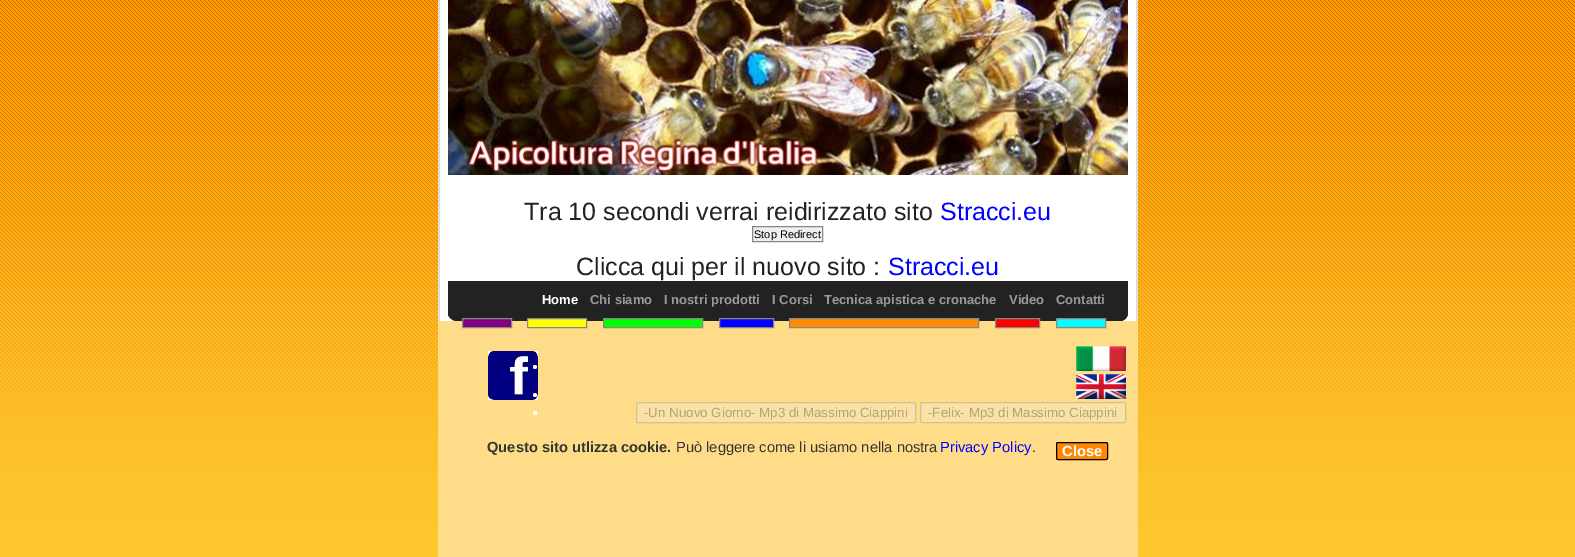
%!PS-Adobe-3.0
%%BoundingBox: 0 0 1575 557
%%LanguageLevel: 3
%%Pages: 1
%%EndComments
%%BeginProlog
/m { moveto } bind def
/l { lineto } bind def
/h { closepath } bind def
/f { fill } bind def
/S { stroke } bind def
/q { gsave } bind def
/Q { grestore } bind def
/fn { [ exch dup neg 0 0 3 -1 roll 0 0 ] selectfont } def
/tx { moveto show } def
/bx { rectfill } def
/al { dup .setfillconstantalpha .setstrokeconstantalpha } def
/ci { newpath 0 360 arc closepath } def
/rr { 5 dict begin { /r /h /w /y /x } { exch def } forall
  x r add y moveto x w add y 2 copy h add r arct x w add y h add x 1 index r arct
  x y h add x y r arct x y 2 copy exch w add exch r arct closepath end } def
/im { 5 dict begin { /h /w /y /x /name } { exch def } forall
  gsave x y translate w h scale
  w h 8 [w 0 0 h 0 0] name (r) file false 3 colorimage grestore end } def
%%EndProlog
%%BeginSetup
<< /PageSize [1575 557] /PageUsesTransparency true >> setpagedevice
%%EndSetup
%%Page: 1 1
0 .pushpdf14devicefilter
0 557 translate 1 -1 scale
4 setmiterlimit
1 setgray
0 0 1575 557 bx
(image0.raw) 0 0 1575 557 im
(image1.raw) 438 0 700 321 im
(image2.raw) 448 0 680 175 im
/LiberationSans-Regular 25 fn
0.133 setgray
(Tra 10 secondi verrai reidirizzato sito) 524 220 tx
0 0 1 setrgbcolor
(Stracci.eu) 940 220 tx
0.937 setgray
752.5 226.5 m 822.5 226.5 l 822.5 241.5 l 752.5 241.5 l h q f Q
0.533 setgray
S
/LiberationSans-Regular 11 fn
0 setgray
(Stop Redirect) 754 238 tx
/LiberationSans-Regular 25 fn
0.133 setgray
(Clicca qui per il nuovo sito :) 576 275 tx
0 0 1 setrgbcolor
(Stracci.eu) 888 275 tx
0.133 setgray
448 281 680 40 bx
(image3.raw) 448 315 7 6 im
(image4.raw) 1122 315 6 6 im
/LiberationSans-Bold 13 fn
1 setgray
(Home) 542 304 tx
0.6 setgray
(Chi siamo) 590 304 tx
(I nostri prodotti) 664 304 tx
(I Corsi) 772 304 tx
(Tecnica apistica e cronache) 824 304 tx
(Video) 1009 304 tx
(Contatti) 1056 304 tx
1 0.867 0.533 setrgbcolor
438 321 700 236 bx
0.502 0 0.502 setrgbcolor
462.5 318.5 m 511.5 318.5 l 511.5 327.5 l 462.5 327.5 l h q f Q
0.533 setgray
S
1 1 0 setrgbcolor
527.5 318.5 m 586.5 318.5 l 586.5 327.5 l 527.5 327.5 l h q f Q
0.533 setgray
S
0 1 0 setrgbcolor
603.5 318.5 m 702.5 318.5 l 702.5 327.5 l 603.5 327.5 l h q f Q
0.533 setgray
S
0 0 1 setrgbcolor
719.5 318.5 m 773.5 318.5 l 773.5 327.5 l 719.5 327.5 l h q f Q
0.533 setgray
S
1 0.549 0 setrgbcolor
789.5 318.5 m 978.5 318.5 l 978.5 327.5 l 789.5 327.5 l h q f Q
0.533 setgray
S
1 0 0 setrgbcolor
995.5 318.5 m 1039.5 318.5 l 1039.5 327.5 l 995.5 327.5 l h q f Q
0.533 setgray
S
0 1 1 setrgbcolor
1056.5 318.5 m 1105.5 318.5 l 1105.5 327.5 l 1056.5 327.5 l h q f Q
0.533 setgray
S
(image5.raw) 488 351 50 49 im
1 setgray
535 367 2 ci f
(image6.raw) 1076 346 50 25 im
535 395 2 ci f
(image7.raw) 1076 374 50 25 im
535 413 2 ci f
0.98 0.886 0.655 setrgbcolor
636 402 280 21 2 rr f
0.3 al
0.463 setgray
636.5 402.5 279 20 1.5 rr S
/LiberationSans-Regular 13.3 fn
1 al
0.706 0.639 0.478 setrgbcolor
(-Un Nuovo Giorno- Mp3 di Massimo Ciappini) 644 417 tx
0.98 0.886 0.655 setrgbcolor
920 402 206 21 2 rr f
0.3 al
0.463 setgray
920.5 402.5 205 20 1.5 rr S
1 al
0.706 0.639 0.478 setrgbcolor
(-Felix- Mp3 di Massimo Ciappini) 928 417 tx
/LiberationSans-Bold 14.7 fn
0.2 setgray
(Questo sito utlizza cookie.) 487 452 tx
/LiberationSans-Regular 14.7 fn
(Può leggere come li usiamo nella nostra) 676 452 tx
0 0 1 setrgbcolor
(Privacy Policy) 940 452 tx
0.2 setgray
(.) 1032 452 tx
1 0.533 0 setrgbcolor
1056.5 442.5 51 17 1.5 rr q f Q
0 setgray
S
/LiberationSans-Bold 14.7 fn
1 setgray
(Close) 1062 456 tx
.poppdf14devicefilter showpage
%%EOF
